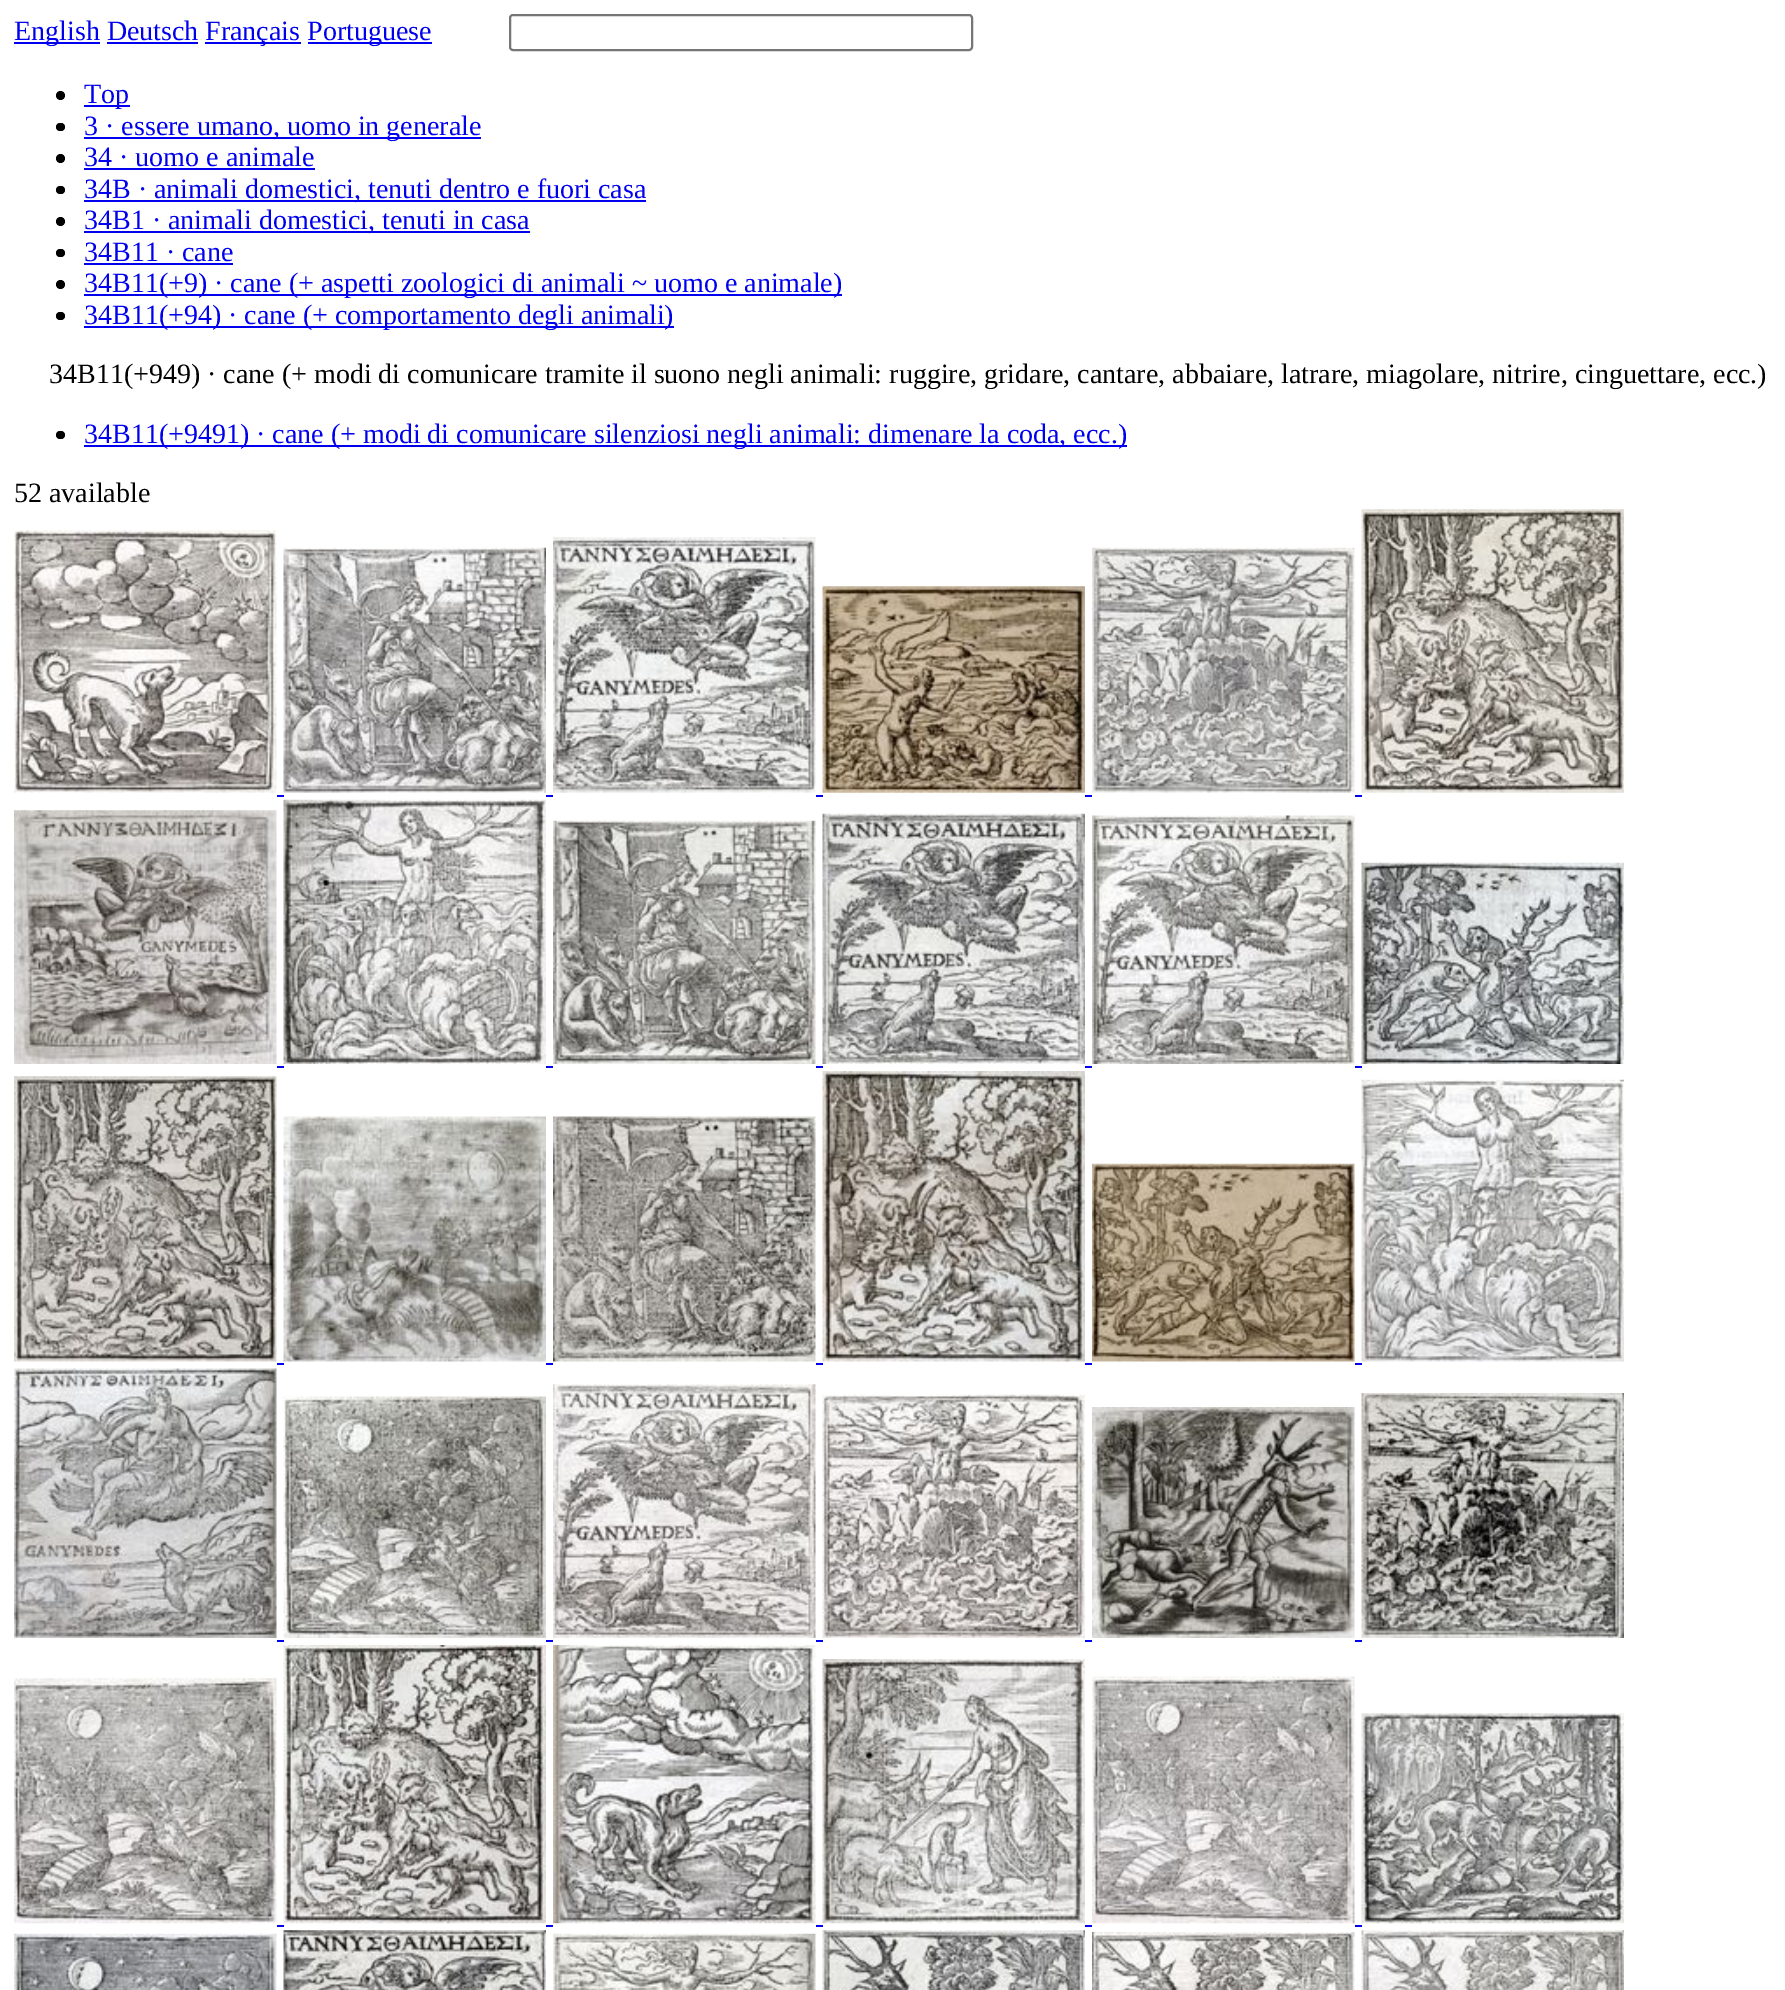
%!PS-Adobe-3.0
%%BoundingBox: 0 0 1785 1990
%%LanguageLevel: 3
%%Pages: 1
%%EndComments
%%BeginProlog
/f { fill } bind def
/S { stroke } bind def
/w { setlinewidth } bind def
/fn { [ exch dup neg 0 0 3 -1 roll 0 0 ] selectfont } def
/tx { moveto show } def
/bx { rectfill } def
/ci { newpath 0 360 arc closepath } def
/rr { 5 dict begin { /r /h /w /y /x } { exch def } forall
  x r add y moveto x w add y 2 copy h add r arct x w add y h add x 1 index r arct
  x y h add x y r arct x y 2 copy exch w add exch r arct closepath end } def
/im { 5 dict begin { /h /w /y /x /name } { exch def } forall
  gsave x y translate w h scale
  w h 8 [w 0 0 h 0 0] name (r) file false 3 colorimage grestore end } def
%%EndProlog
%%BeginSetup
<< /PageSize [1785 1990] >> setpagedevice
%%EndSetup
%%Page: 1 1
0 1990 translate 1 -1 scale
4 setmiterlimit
1 setgray
0 0 1785 1990 bx
0 0 0.933 setrgbcolor
14 42 86 2 bx
/LiberationSerif-Regular 28 fn
(English Deutsch) 14 40 tx
205 42 96 2 bx
(Français) 205 40 tx
308 42 124 2 bx
(Portuguese) 307 40 tx
0.463 setgray
2 w
510 15 462 35 3 rr S
0 0 0.933 setrgbcolor
107 42 91 2 bx
0 setgray
60.5 95.5 4.5 ci f
0 0 0.933 setrgbcolor
84 105 46 2 bx
(Top) 84 103 tx
0 setgray
56 123 9 8 4 rr f
0 0 0.933 setrgbcolor
84 137 397 2 bx
(3 · essere umano, uomo in generale) 84 135 tx
0 setgray
60.5 158.5 4.5 ci f
0 0 0.933 setrgbcolor
(34 · uomo e animale) 84 166 tx
84 168 231 2 bx
0 setgray
56 186 9 8 4 rr f
0 0 0.933 setrgbcolor
84 200 562 2 bx
(34B · animali domestici, tenuti dentro e fuori casa) 84 198 tx
0 setgray
60.5 221.5 4.5 ci f
0 0 0.933 setrgbcolor
84 231 446 2 bx
(34B1 · animali domestici, tenuti in casa) 84 229 tx
0 setgray
56 249 9 8 4 rr f
0 0 0.933 setrgbcolor
(34B11 · cane) 84 261 tx
84 263 149 2 bx
0 setgray
60.5 284.5 4.5 ci f
0 0 0.933 setrgbcolor
84 294 758 2 bx
(34B11\(+9\) · cane \(+ aspetti zoologici di animali ~ uomo e animale\)) 84 292 tx
0 setgray
56 312 9 8 4 rr f
0 0 0.933 setrgbcolor
84 326 590 2 bx
(34B11\(+94\) · cane \(+ comportamento degli animali\)) 84 324 tx
0 setgray
(34B11\(+949\) · cane \(+ modi di comunicare tramite il suono negli animali: ruggire, gridare, cantare, abbaiare, latrare, miagolare, nitrire, cinguettare, ecc.\)) 49 383 tx
56 431 9 8 4 rr f
0 0 0.933 setrgbcolor
84 445 1043 2 bx
(34B11\(+9491\) · cane \(+ modi di comunicare silenziosi negli animali: dimenare la coda, ecc.\)) 84 443 tx
0 setgray
(52 available) 14 502 tx
(image0.raw) 14 530 263 263 im
(image1.raw) 283 547 263 246 im
(image2.raw) 553 537 263 256 im
(image3.raw) 822 586 263 207 im
(image4.raw) 1092 547 263 246 im
(image5.raw) 1361 509 263 284 im
0 0 0.933 setrgbcolor
277 795 7 2 bx
546 795 7 2 bx
816 795 7 2 bx
1085 795 7 2 bx
1355 795 7 2 bx
(image6.raw) 14 810 263 254 im
(image7.raw) 283 799 263 265 im
(image8.raw) 553 820 263 244 im
(image9.raw) 822 813 263 251 im
(image10.raw) 1092 815 263 249 im
(image11.raw) 1361 862 263 202 im
277 1066 7 2 bx
546 1066 7 2 bx
816 1066 7 2 bx
1085 1066 7 2 bx
1355 1066 7 2 bx
(image12.raw) 14 1076 263 286 im
(image13.raw) 283 1116 263 246 im
(image14.raw) 553 1116 263 246 im
(image15.raw) 822 1071 263 291 im
(image16.raw) 1092 1163 263 199 im
(image17.raw) 1361 1079 263 283 im
277 1363 7 2 bx
546 1363 7 2 bx
816 1363 7 2 bx
1085 1363 7 2 bx
1355 1363 7 2 bx
(image18.raw) 14 1368 263 270 im
(image19.raw) 283 1396 263 242 im
(image20.raw) 553 1384 263 254 im
(image21.raw) 822 1394 263 244 im
(image22.raw) 1092 1407 263 231 im
(image23.raw) 1361 1393 263 245 im
277 1640 7 2 bx
546 1640 7 2 bx
816 1640 7 2 bx
1085 1640 7 2 bx
1355 1640 7 2 bx
(image24.raw) 14 1678 263 246 im
(image25.raw) 283 1645 263 279 im
(image26.raw) 553 1645 263 279 im
(image27.raw) 822 1659 263 265 im
(image28.raw) 1092 1676 263 248 im
(image29.raw) 1361 1713 263 211 im
277 1925 7 2 bx
546 1925 7 2 bx
816 1925 7 2 bx
1085 1925 7 2 bx
1355 1925 7 2 bx
(image30.raw) 14 1933 263 57 im
(image31.raw) 283 1930 263 60 im
(image32.raw) 553 1933 263 57 im
(image33.raw) 822 1930 263 60 im
(image34.raw) 1092 1932 263 58 im
(image35.raw) 1361 1930 263 60 im
showpage
%%EOF
